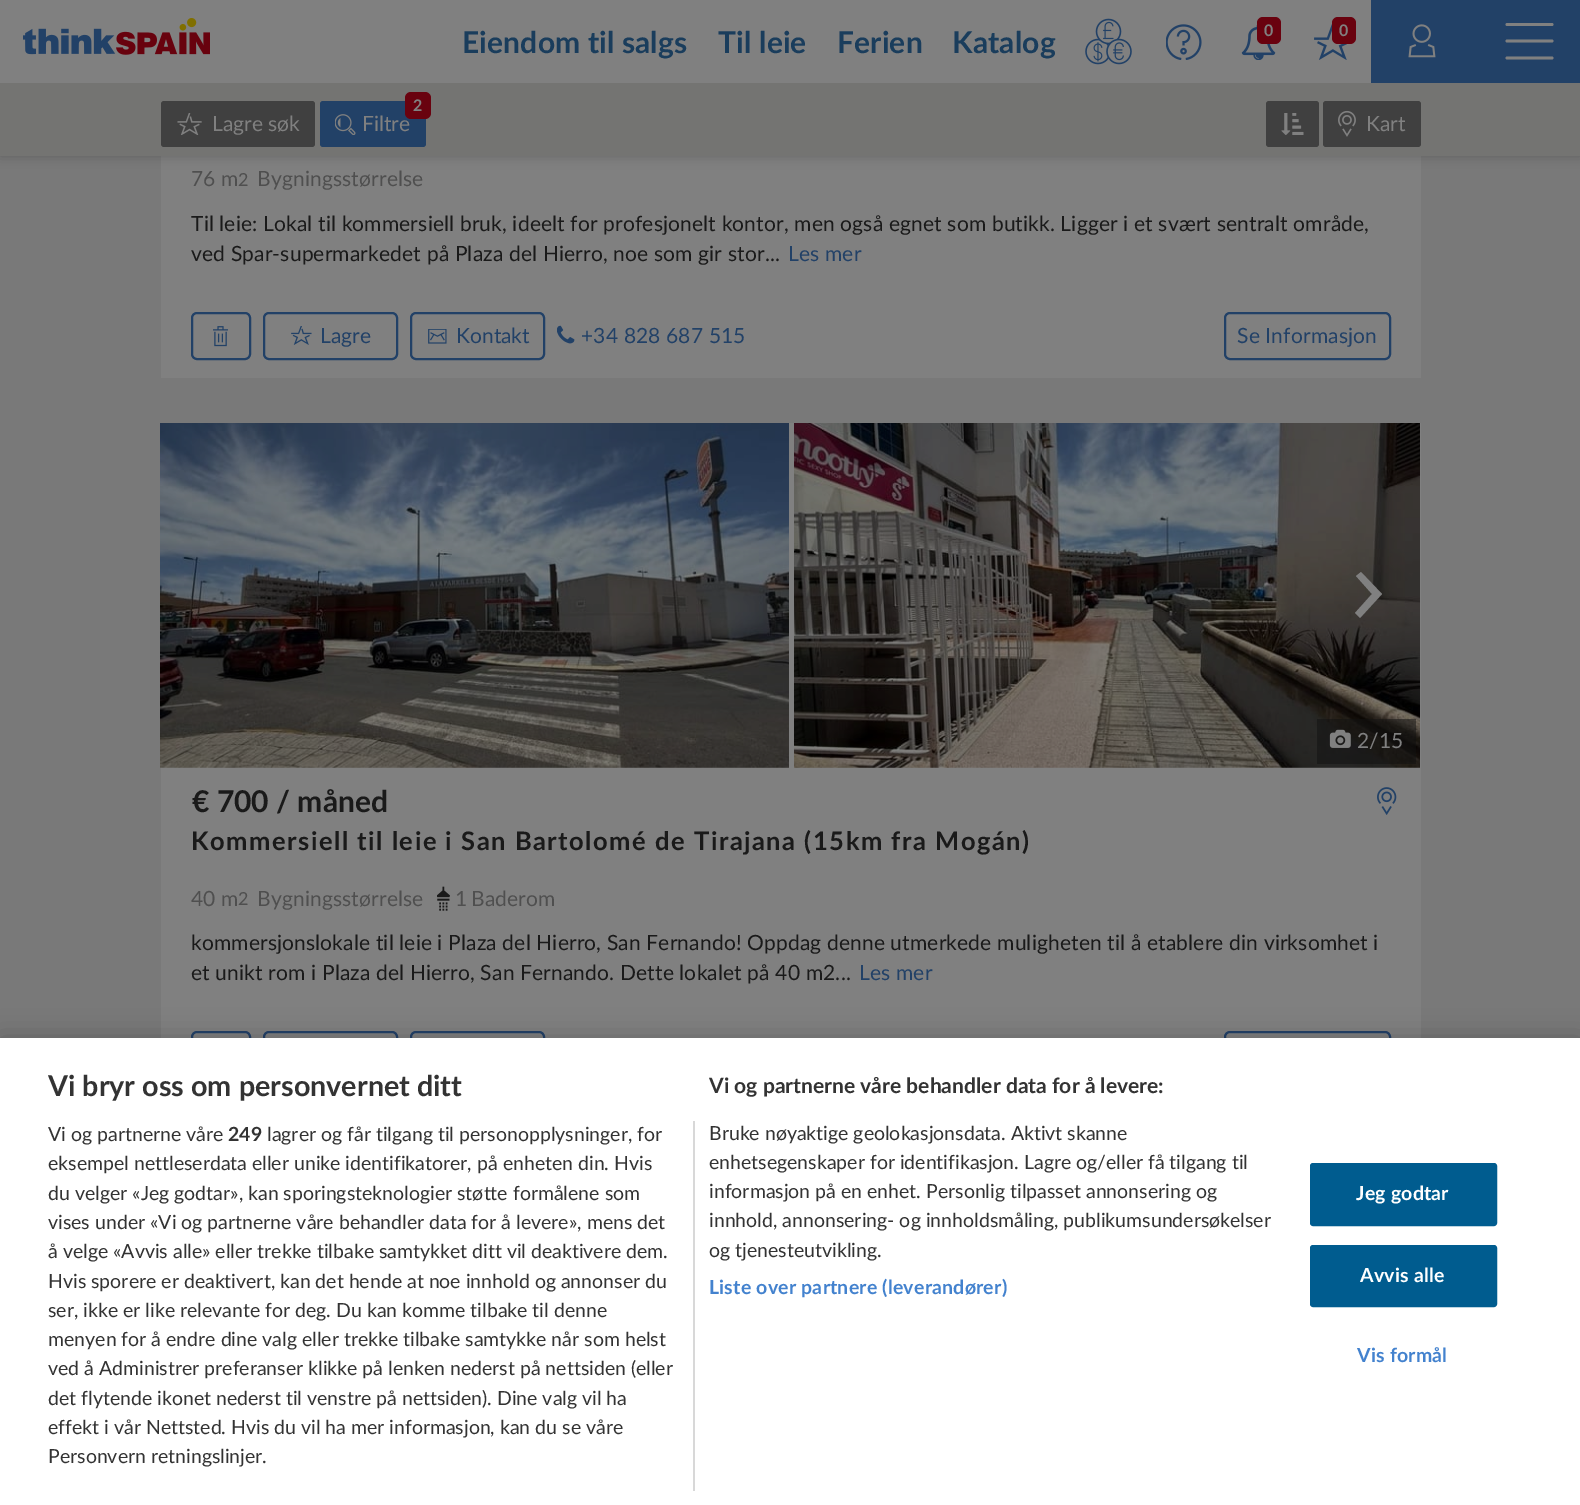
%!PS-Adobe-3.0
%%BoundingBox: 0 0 1580 1505
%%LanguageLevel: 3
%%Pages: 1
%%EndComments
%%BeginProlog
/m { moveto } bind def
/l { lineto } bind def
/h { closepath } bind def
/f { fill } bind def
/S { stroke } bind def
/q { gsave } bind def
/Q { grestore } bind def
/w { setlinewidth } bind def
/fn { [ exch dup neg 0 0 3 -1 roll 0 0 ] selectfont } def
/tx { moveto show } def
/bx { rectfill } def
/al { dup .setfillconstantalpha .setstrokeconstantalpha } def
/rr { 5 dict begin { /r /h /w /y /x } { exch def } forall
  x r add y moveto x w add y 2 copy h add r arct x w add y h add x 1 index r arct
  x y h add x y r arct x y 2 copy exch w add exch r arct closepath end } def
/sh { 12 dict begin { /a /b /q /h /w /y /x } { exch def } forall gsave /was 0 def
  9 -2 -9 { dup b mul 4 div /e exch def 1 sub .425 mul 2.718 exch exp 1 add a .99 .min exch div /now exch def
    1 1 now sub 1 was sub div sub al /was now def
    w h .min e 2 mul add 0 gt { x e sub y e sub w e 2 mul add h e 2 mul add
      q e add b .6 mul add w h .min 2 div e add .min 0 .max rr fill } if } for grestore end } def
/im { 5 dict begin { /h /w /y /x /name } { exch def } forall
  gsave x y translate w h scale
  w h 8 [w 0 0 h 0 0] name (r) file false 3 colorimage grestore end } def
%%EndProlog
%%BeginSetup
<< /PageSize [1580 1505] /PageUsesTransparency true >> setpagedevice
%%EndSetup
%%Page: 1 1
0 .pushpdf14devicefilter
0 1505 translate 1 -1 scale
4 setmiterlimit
0.475 setgray
0 0 1580 1505 bx
0.502 setgray
161 156 1260 222 bx
0 setgray
0 83 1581 73 0 6 0.2 sh
0.502 setgray
0 0 1371 83 bx
(image0.raw) 23 18 187 37 im
(image1.raw) 1085 18 47 47 im
(image2.raw) 1241 25 35 35 im
0.412 0.008 0.059 setrgbcolor
1257 17 24 27 6 rr f
/Lato-Bold 16 fn
0.502 setgray
(0) 1264 36 tx
(image3.raw) 1314 24 33 36 im
0.412 0.008 0.059 setrgbcolor
1332 17 24 27 6 rr f
0.502 setgray
(0) 1339 36 tx
0.133 0.255 0.404 setrgbcolor
1371 0 209 83 bx
(image4.raw) 1408 24 28 34 im
/Lato-Bold 30 fn
0.102 0.239 0.361 setrgbcolor
462 53 m 0.15 0 (Eiendom til salgs) ashow
718 53 m 0.15 0 (Til leie) ashow
837 53 m 0.15 0 (Ferien) ashow
952 53 m 0.15 0 (Katalog) ashow
(image5.raw) 1166 24 36 36 im
0.502 setgray
2.8 w
1 setlinecap
1507 58 m 1552 58 l 1507 41 m 1552 41 l 1507 24.5 m 1552 24.5 l S
0.455 0.455 0.447 setrgbcolor
0 83 1580 73 bx
0.251 setgray
161 101 154 46 3 rr f
(image6.raw) 177 113 25 22 im
/Lato-Regular 21 fn
0.502 setgray
(Lagre søk) 212 131 tx
0.133 0.255 0.404 setrgbcolor
320 101 106 46 3 rr f
0.502 setgray
(Filtre) 362 131 tx
0.412 0.008 0.059 setrgbcolor
405 92 26 27 6 rr f
/Lato-Bold 16 fn
0.502 setgray
(2) 413 111 tx
(image7.raw) 335 114 21 21 im
0.251 setgray
1266 101 53 46 3 rr f
(image8.raw) 1281 113 23 22 im
1323 101 98 46 3 rr f
(image9.raw) 1338 110 18 27 im
/Lato-Regular 21 fn
0.502 setgray
(Kart) 1366 131 tx
0.31 setgray
191 186 m 0.15 0 (76 m) ashow
/Lato-Regular 18 fn
238 186 m 0.15 0 (2) ashow
/Lato-Regular 21 fn
257 186 m 0.15 0 (Bygningsstørrelse) ashow
0.102 setgray
191 231 m 0.15 0 (Til leie: Lokal til kommersiell bruk, ideelt for profesjonelt kontor, men også egnet som butikk. Ligger i et svært sentralt område,) ashow
191 261 m 0.15 0 (ved Spar-supermarkedet på Plaza del Hierro, noe som gir stor...) ashow
0.133 0.255 0.404 setrgbcolor
788 261 m 0.15 0 (Les mer) ashow
2 w
0 setlinecap
192 313 58 46 5 rr S
(image10.raw) 213 326 15 21 im
264 313 133 46 5 rr S
(image11.raw) 291 326 21 19 im
(Lagre) 320 343 tx
411 313 133 46 5 rr S
(image12.raw) 428 329 19 15 im
(Kontakt) 456 343 tx
(image13.raw) 557 325 18 19 im
581 343 m 0.15 0 (+34 828 687 515) ashow
1225 313 165 46 5 rr S
1237 343 m 0.15 0 (Se Informasjon) ashow
0.502 setgray
161 423 1260 615 bx
(image14.raw) 160 423 629 345 im
(image15.raw) 794 423 626 345 im
1361 572 m 1382 594 l 1360 618 l 1355 613 l 1372 594 l 1356 576 l h f
0.5 al
0.067 setgray
1317 719 99 45 bx
1 al
(image16.raw) 1329 729 22 19 im
0.502 setgray
1357 748 m 0.15 0 (2/15) ashow
/Lato-Bold 30 fn
0.102 setgray
(€ 700 / måned) 192 812 tx
/Lato-Bold 25.5 fn
191 850 m 1.5 0 (Kommersiell til leie i San Bartolomé de Tirajana \(15km fra Mogán\)) ashow
(image17.raw) 1377 787 20 28 im
/Lato-Regular 21 fn
0.31 setgray
191 906 m 0.15 0 (40 m) ashow
/Lato-Regular 18 fn
238 905 m 0.15 0 (2) ashow
/Lato-Regular 21 fn
257 906 m 0.15 0 (Bygningsstørrelse) ashow
(image18.raw) 437 886 13 25 im
455 906 m 0.15 0 (1) ashow
471 906 m 0.15 0 (Baderom) ashow
0.102 setgray
191 950 m 0.15 0 (kommersjonslokale til leie i Plaza del Hierro, San Fernando! Oppdag denne utmerkede muligheten til å etablere din virksomhet i) ashow
191 980 m 0.15 0 (et unikt rom i Plaza del Hierro, San Fernando. Dette lokalet på 40 m2...) ashow
0.133 0.255 0.404 setrgbcolor
859 980 m 0.15 0 (Les mer) ashow
192 1032 58 46 5 rr S
264 1032 133 46 5 rr S
411 1032 133 46 5 rr S
1225 1032 165 46 5 rr S
0 setgray
0 1038 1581 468 0 13.5 0.2 sh
1 setgray
0 1038 1580 467 bx
/Lato-Bold 28.75 fn
0.2 setgray
(Vi bryr oss om personvernet ditt) 48 1096 tx
/Lato-Bold 21.1 fn
(Vi og partnerne våre behandler data for å levere:) 709 1093 tx
/Lato-Regular 19.5 fn
(Bruke nøyaktige geolokasjonsdata. Aktivt skanne) 709 1140 tx
(enhetsegenskaper for identifikasjon. Lagre og/eller få tilgang til) 709 1169 tx
(informasjon på en enhet. Personlig tilpasset annonsering og) 709 1198 tx
(innhold, annonsering- og innholdsmåling, publikumsundersøkelser) 709 1227 tx
(og tjenesteutvikling.) 709 1257 tx
/Lato-Bold 19.5 fn
0.263 0.51 0.808 setrgbcolor
709 1294 m 0.2 0 (Liste over partnere \(leverandører\)) ashow
0.847 setgray
693 1121 2 370 bx
/Lato-Regular 19.5 fn
0.2 setgray
(Vi og partnerne våre) 48 1141 tx
/Lato-Bold 19.5 fn
(249) 228 1141 tx
/Lato-Regular 19.5 fn
(lagrer og får tilgang til personopplysninger, for) 267 1141 tx
(eksempel nettleserdata eller unike identifikatorer, på enheten din. Hvis) 48 1170 tx
(du velger «Jeg godtar», kan sporingsteknologier støtte formålene som) 48 1200 tx
(vises under «Vi og partnerne våre behandler data for å levere», mens det) 48 1229 tx
(å velge «Avvis alle» eller trekke tilbake samtykket ditt vil deaktivere dem.) 48 1258 tx
(Hvis sporere er deaktivert, kan det hende at noe innhold og annonser du) 48 1288 tx
(ser, ikke er like relevante for deg. Du kan komme tilbake til denne) 48 1317 tx
(menyen for å endre dine valg eller trekke tilbake samtykke når som helst) 48 1346 tx
(ved å Administrer preferanser klikke på lenken nederst på nettsiden \(eller) 48 1375 tx
(det flytende ikonet nederst til venstre på nettsiden\). Dine valg vil ha) 48 1405 tx
(effekt i vår Nettsted. Hvis du vil ha mer informasjon, kan du se våre) 48 1434 tx
(Personvern retningslinjer.) 48 1463 tx
0 0.361 0.561 setrgbcolor
1311 1164 185 61 2 rr q f Q
S
/Lato-Bold 19.5 fn
1 setgray
1356 1200 m 0.2 0 (Jeg godtar) ashow
0 0.361 0.561 setrgbcolor
1311 1246 185 60 2 rr q f Q
S
1 setgray
1360 1282 m 0.2 0 (Avvis alle) ashow
0.263 0.51 0.808 setrgbcolor
1357 1362 m 0.2 0 (Vis formål) ashow
.poppdf14devicefilter showpage
%%EOF
